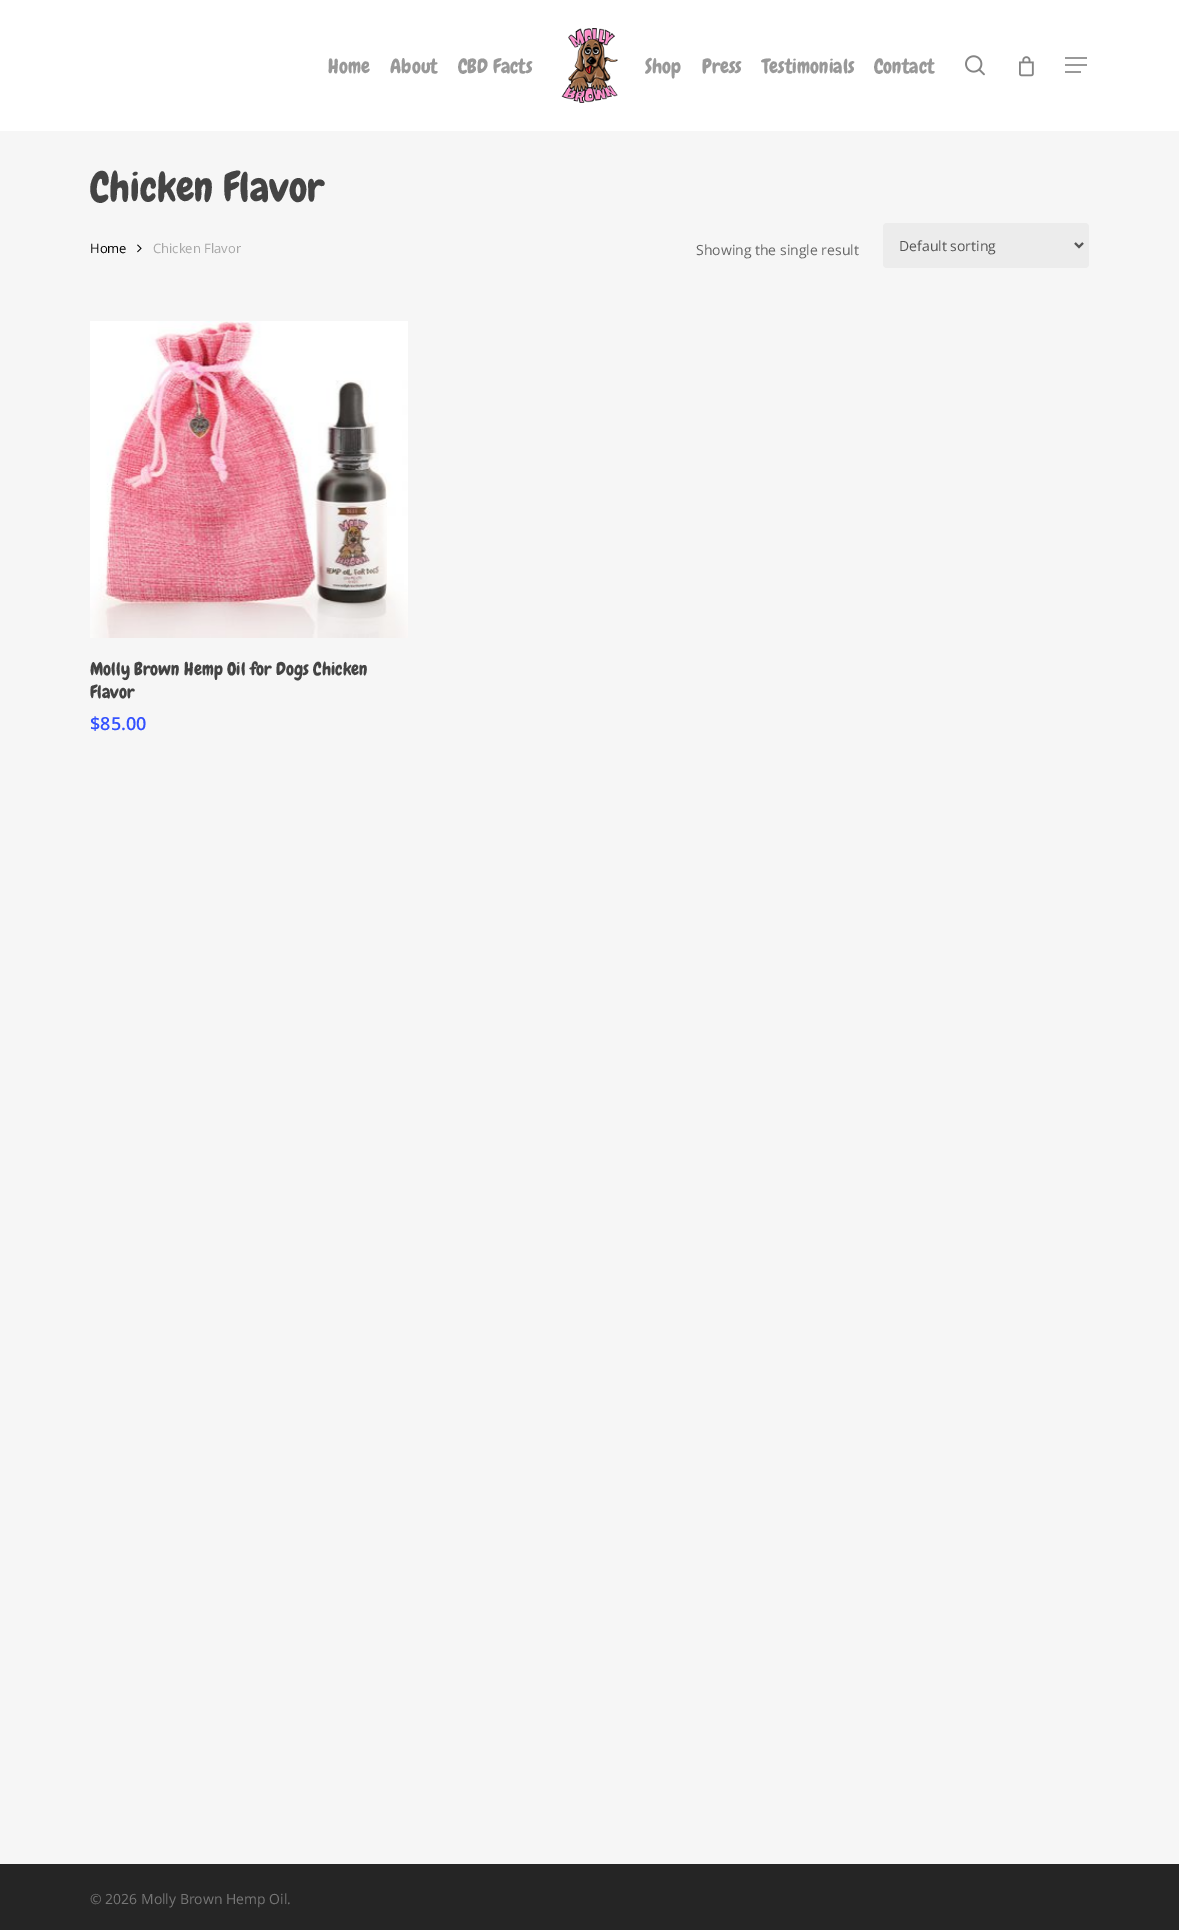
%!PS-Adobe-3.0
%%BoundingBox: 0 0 1179 1930
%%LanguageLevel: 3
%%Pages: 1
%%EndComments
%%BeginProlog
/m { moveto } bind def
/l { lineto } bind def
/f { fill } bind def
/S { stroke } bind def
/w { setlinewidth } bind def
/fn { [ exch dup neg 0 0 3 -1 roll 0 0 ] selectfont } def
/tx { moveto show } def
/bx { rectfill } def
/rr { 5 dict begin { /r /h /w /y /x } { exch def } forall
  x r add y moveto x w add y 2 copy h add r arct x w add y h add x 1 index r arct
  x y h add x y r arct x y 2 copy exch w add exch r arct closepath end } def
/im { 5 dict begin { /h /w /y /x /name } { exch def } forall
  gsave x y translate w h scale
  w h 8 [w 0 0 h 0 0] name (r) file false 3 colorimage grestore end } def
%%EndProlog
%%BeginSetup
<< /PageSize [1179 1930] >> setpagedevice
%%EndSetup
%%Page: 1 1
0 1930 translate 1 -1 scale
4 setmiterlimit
0.965 setgray
0 0 1179 1930 bx
1 setgray
0 0 1179 131 bx
(image0.raw) 561 28 57 75 im
/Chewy-Regular 20 fn
0.6 setgray
(Home) 328 73 tx
(About) 390 73 tx
(CBD Facts) 458 73 tx
(Shop) 645 73 tx
(Press) 702 73 tx
(Testimonials) 762 73 tx
(Contact) 874 73 tx
(image1.raw) 965 55 20 21 im
(image2.raw) 1019 56 15 21 im
1065 57 22 2 bx
1065 71 16 2 bx
1065 64 22 2 bx
/Chewy-Regular 40.75 fn
0.267 setgray
(Chicken Flavor) 90 201 tx
/OpenSans-Regular 13 fn
0 setgray
(Home) 90 253 tx
(image3.raw) 137 244 5 9 im
0.655 setgray
(Chicken Flavor) 153 253 tx
/OpenSans-Regular 14 fn
0.404 setgray
(Showing the single result) 696 255 tx
0.925 setgray
883 223 206 45 4 rr f
0.333 setgray
2 w
1075 243 m 1079 247 l 1083 243 l S
(Default sorting) 899 251 tx
(image4.raw) 90 321 318 317 im
/Chewy-Regular 18 fn
0.267 setgray
(Molly Brown Hemp Oil for Dogs Chicken) 90 675 tx
(Flavor) 90 698 tx
/OpenSans-SemiBold 18 fn
0.204 0.322 1 setrgbcolor
($85.00) 90 730 tx
0.145 setgray
0 1864 1179 66 bx
/OpenSans-Regular 14 fn
0.467 setgray
(© 2026 Molly Brown Hemp Oil.) 90 1904 tx
showpage
%%EOF
